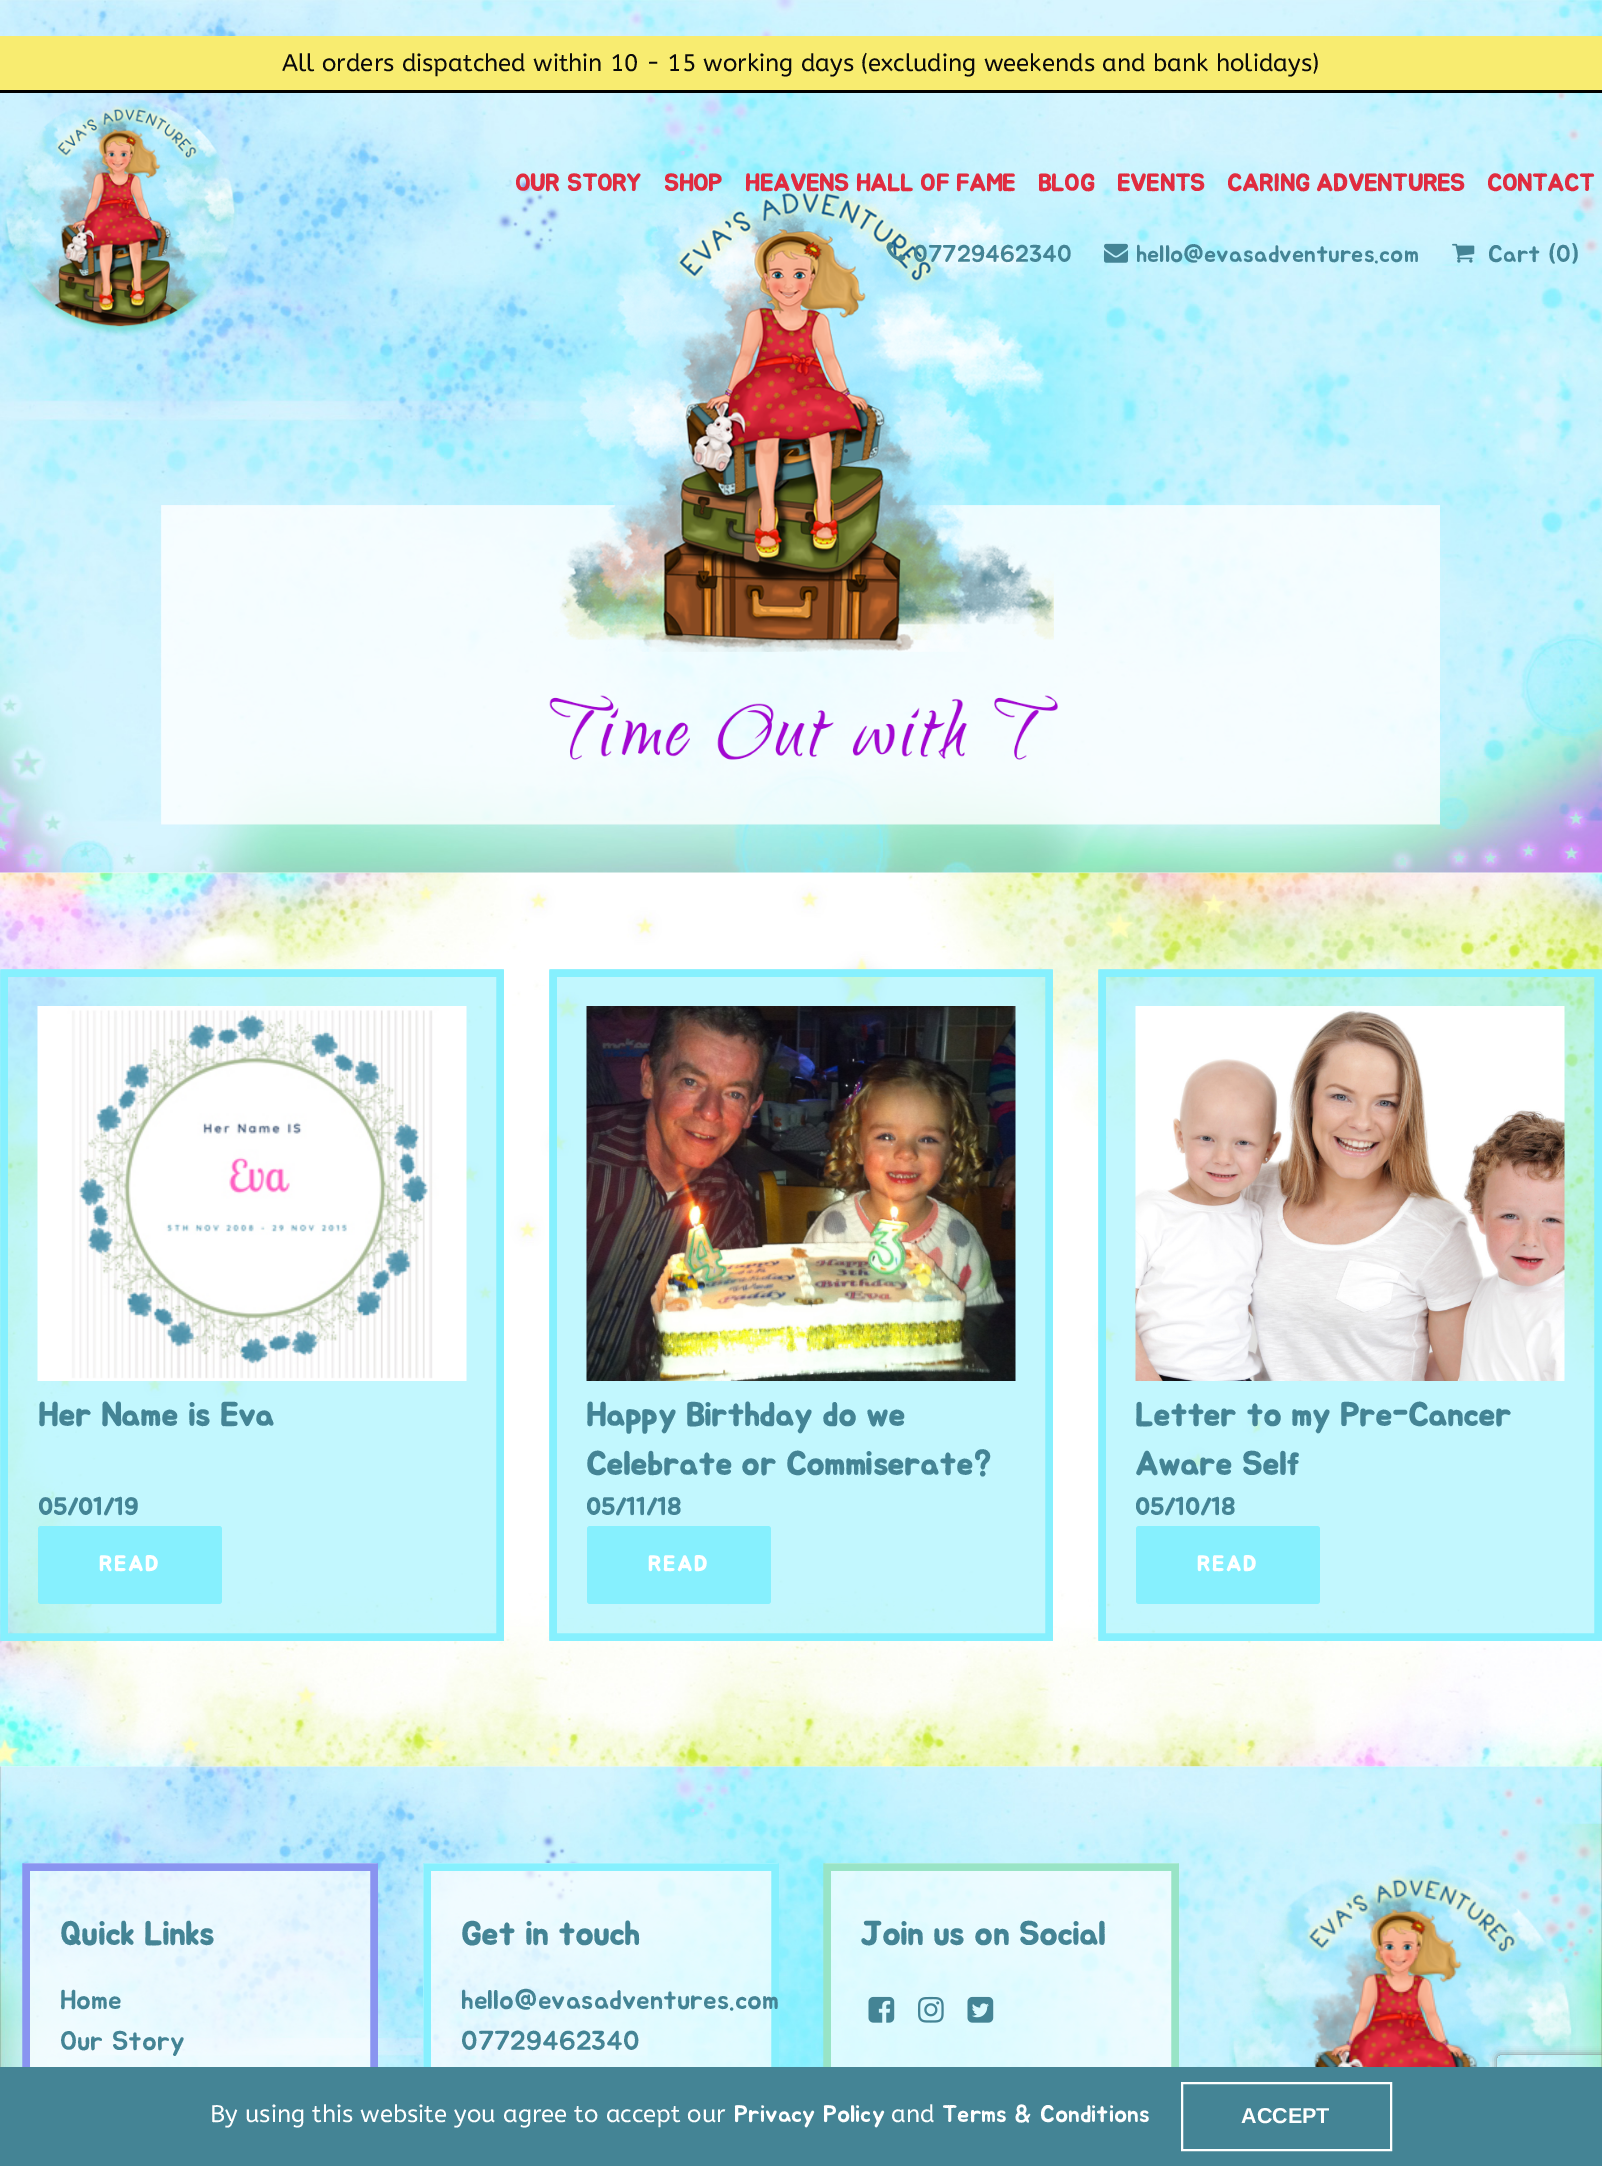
%!PS-Adobe-3.0
%%BoundingBox: 0 0 1602 2166
%%LanguageLevel: 3
%%Pages: 1
%%EndComments
%%BeginProlog
/m { moveto } bind def
/l { lineto } bind def
/c { curveto } bind def
/h { closepath } bind def
/f { fill } bind def
/S { stroke } bind def
/q { gsave } bind def
/Q { grestore } bind def
/w { setlinewidth } bind def
/fn { [ exch dup neg 0 0 3 -1 roll 0 0 ] selectfont } def
/tx { moveto show } def
/bx { rectfill } def
/al { dup .setfillconstantalpha .setstrokeconstantalpha } def
/rr { 5 dict begin { /r /h /w /y /x } { exch def } forall
  x r add y moveto x w add y 2 copy h add r arct x w add y h add x 1 index r arct
  x y h add x y r arct x y 2 copy exch w add exch r arct closepath end } def
/sh { 12 dict begin { /a /b /q /h /w /y /x } { exch def } forall gsave /was 0 def
  9 -2 -9 { dup b mul 4 div /e exch def 1 sub .425 mul 2.718 exch exp 1 add a .99 .min exch div /now exch def
    1 1 now sub 1 was sub div sub al /was now def
    w h .min e 2 mul add 0 gt { x e sub y e sub w e 2 mul add h e 2 mul add
      q e add b .6 mul add w h .min 2 div e add .min 0 .max rr fill } if } for grestore end } def
/im { 5 dict begin { /h /w /y /x /name } { exch def } forall
  gsave x y translate w h scale
  w h 8 [w 0 0 h 0 0] name (r) file false 3 colorimage grestore end } def
%%EndProlog
%%BeginSetup
<< /PageSize [1602 2166] /PageUsesTransparency true >> setpagedevice
%%EndSetup
%%Page: 1 1
0 .pushpdf14devicefilter
0 2166 translate 1 -1 scale
4 setmiterlimit
1 setgray
0 0 1602 2166 bx
(image6.raw) 0 872 1602 895 im
(image4.raw) 0 0 1602 873 im
0.973 0.925 0.439 setrgbcolor
0 36 1602 54 bx
0 setgray
0 90 1602 3 bx
/ABeeZee-Regular 24 fn
0.039 setgray
(All orders dispatched within 10 - 15 working days \(excluding weekends and bank holidays\)) 282 71 tx
(image5.raw) 161 173 1279 652 im
(image0.raw) 3 99 234 237 im
/Jua-Bold 24 fn
0.878 0.173 0.251 setrgbcolor
(OUR STORY) 515 191 tx
(SHOP) 664 191 tx
(HEAVENS HALL OF FAME) 745 191 tx
(BLOG) 1038 191 tx
(EVENTS) 1117 191 tx
(CARING ADVENTURES) 1227 191 tx
(CONTACT) 1487 191 tx
(image1.raw) 886 242 20 19 im
/Jua-Regular 24 fn
0.267 0.518 0.584 setrgbcolor
(07729462340) 913 262 tx
(image2.raw) 1104 243 24 20 im
(hello@evasadventures.com) 1136 262 tx
(image3.raw) 1452 243 23 20 im
(Cart \(0\)) 1488 262 tx
0.5 al
0.525 0.941 0.996 setrgbcolor
0 969 504 672 3 rr f
1 al
7.5 w
4 973 m 500 973 l 500 1637 l 4 1637 l h S
(image7.raw) 37 1006 430 375 im
/Jua-Bold 33 fn
0.267 0.518 0.584 setrgbcolor
(Her Name is Eva) 38 1426 tx
/Jua-Bold 24 fn
(05/01/19) 38 1515 tx
0.525 0.941 0.996 setrgbcolor
38 1526 184 78 3 rr f
/Jua-Bold 21.5 fn
1 setgray
99 1571 m 2 0 (READ) ashow
0.5 al
0.525 0.941 0.996 setrgbcolor
549 969 504 672 3 rr f
1 al
553 973 m 1049 973 l 1049 1637 l 553 1637 l h S
(image8.raw) 586 1006 430 375 im
/Jua-Bold 33 fn
0.267 0.518 0.584 setrgbcolor
(Happy Birthday do we) 586 1426 tx
(Celebrate or Commiserate?) 586 1475 tx
/Jua-Bold 24 fn
(05/11/18) 586 1515 tx
0.525 0.941 0.996 setrgbcolor
587 1526 184 78 3 rr f
/Jua-Bold 21.5 fn
1 setgray
648 1571 m 2 0 (READ) ashow
0.5 al
0.525 0.941 0.996 setrgbcolor
1098 969 504 672 3 rr f
1 al
1102 973 m 1598 973 l 1598 1637 l 1102 1637 l h S
(image9.raw) 1135 1006 430 375 im
/Jua-Bold 33 fn
0.267 0.518 0.584 setrgbcolor
(Letter to my Pre-Cancer) 1135 1426 tx
(Aware Self) 1135 1475 tx
/Jua-Bold 24 fn
(05/10/18) 1135 1515 tx
0.525 0.941 0.996 setrgbcolor
1136 1526 184 78 3 rr f
/Jua-Bold 21.5 fn
1 setgray
1197 1571 m 2 0 (READ) ashow
(image10.raw) 0 1766 1602 301 im
0.7 al
23 1863 355 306 3 rr f
1 al
0.537 0.58 0.941 setrgbcolor
26 1867 m 374 1867 l 374 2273 l 26 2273 l h S
/Jua-Bold 33 fn
0.267 0.518 0.584 setrgbcolor
(Quick Links) 60 1945 tx
/Jua-Regular 27 fn
(Home) 60 2009 tx
(Our Story) 60 2050 tx
0.7 al
1 setgray
423 1863 356 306 3 rr f
1 al
0.525 0.941 0.996 setrgbcolor
427 1867 m 775 1867 l 775 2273 l 427 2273 l h S
/Jua-Bold 33 fn
0.267 0.518 0.584 setrgbcolor
(Get in touch) 461 1945 tx
/Jua-Regular 27 fn
(hello@evasadventures.com) 461 2009 tx
(07729462340) 461 2050 tx
0.7 al
1 setgray
824 1863 355 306 3 rr f
1 al
0.596 0.894 0.776 setrgbcolor
827 1867 m 1175 1867 l 1175 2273 l 827 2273 l h S
/Jua-Bold 33 fn
0.267 0.518 0.584 setrgbcolor
(Join us on Social) 861 1945 tx
(image11.raw) 868 1996 27 27 im
(image12.raw) 918 1996 26 27 im
(image13.raw) 967 1996 27 27 im
(image14.raw) 1229 1864 347 203 im
q
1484 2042 m 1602 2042 l 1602 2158 l 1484 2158 l h 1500 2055 m 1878 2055 l 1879.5 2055 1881 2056.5 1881 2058 c 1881 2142 l 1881 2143.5 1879.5 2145 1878 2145 c 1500 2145 l 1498.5 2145 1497 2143.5 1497 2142 c 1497 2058 l 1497 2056.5 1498.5 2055 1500 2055 c h eoclip newpath
0.502 setgray
1497 2055 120 90 3 4 1 sh
Q
0 2067 1602 99 bx
/ABeeZee-Regular 24 fn
1 setgray
(By using this website you agree to accept our) 210 2122 tx
/Jua-Regular 24 fn
(Privacy Policy) 734 2122 tx
/ABeeZee-Regular 24 fn
(and) 891 2122 tx
/Jua-Regular 24 fn
(Terms & Conditions) 942 2122 tx
2 w
1182 2083 209 67 rectstroke
/LiberationSans-Bold 21.5 fn
(ACCEPT) 1241 2123 tx
.poppdf14devicefilter showpage
%%EOF
